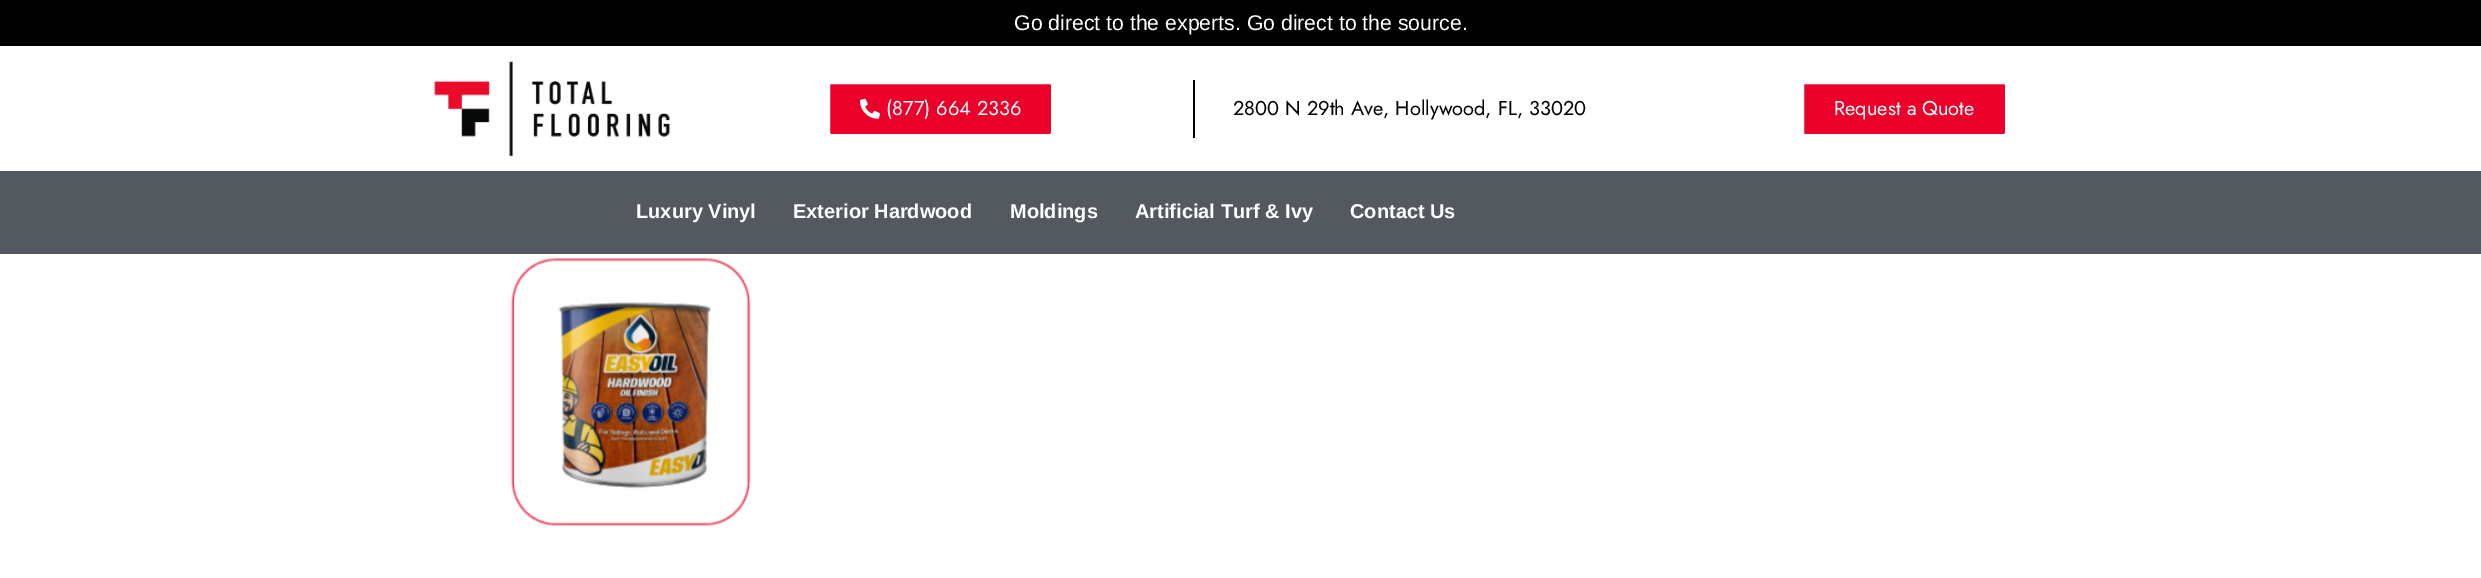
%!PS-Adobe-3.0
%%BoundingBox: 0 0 2481 578
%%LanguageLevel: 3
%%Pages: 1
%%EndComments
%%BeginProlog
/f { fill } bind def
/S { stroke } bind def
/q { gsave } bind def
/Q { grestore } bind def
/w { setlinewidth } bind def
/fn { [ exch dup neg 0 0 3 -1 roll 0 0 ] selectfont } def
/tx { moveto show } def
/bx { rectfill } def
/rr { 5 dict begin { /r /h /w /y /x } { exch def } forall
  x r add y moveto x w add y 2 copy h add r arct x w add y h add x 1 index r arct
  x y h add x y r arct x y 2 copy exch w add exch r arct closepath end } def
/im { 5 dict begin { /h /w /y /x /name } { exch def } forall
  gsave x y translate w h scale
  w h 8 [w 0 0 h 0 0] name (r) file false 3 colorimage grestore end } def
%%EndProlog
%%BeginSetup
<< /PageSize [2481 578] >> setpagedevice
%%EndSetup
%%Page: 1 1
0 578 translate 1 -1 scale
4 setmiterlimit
1 setgray
0 0 2481 578 bx
0 setgray
0 0 2481 46 bx
/LiberationSans-Regular 21.25 fn
1 setgray
(Go direct to the experts. Go direct to the source.) 1014 30 tx
(image0.raw) 434 61 236 96 im
0.918 0 0.161 setrgbcolor
828 82 225 54 3 rr q f Q
1 setgray
4 w
S
(image1.raw) 860 98 20 21 im
/Jost-Regular 20 fn
(\(877\) 664 2336) 886 115 tx
0 setgray
1193 80 2 58 bx
(2800 N 29th Ave, Hollywood, FL, 33020) 1233 115 tx
0.918 0 0.161 setrgbcolor
1802 82 205 54 3 rr q f Q
1 setgray
S
(Request a Quote) 1834 115 tx
0.329 0.349 0.373 setrgbcolor
0 171 2481 83 bx
/LiberationSans-Bold 20 fn
1 setgray
(Luxury Vinyl) 636 218 tx
(Exterior Hardwood) 793 218 tx
(Moldings) 1010 218 tx
(Artificial Turf & Ivy) 1135 218 tx
(Contact Us) 1350 218 tx
(image2.raw) 510 258 241 268 im
showpage
%%EOF
